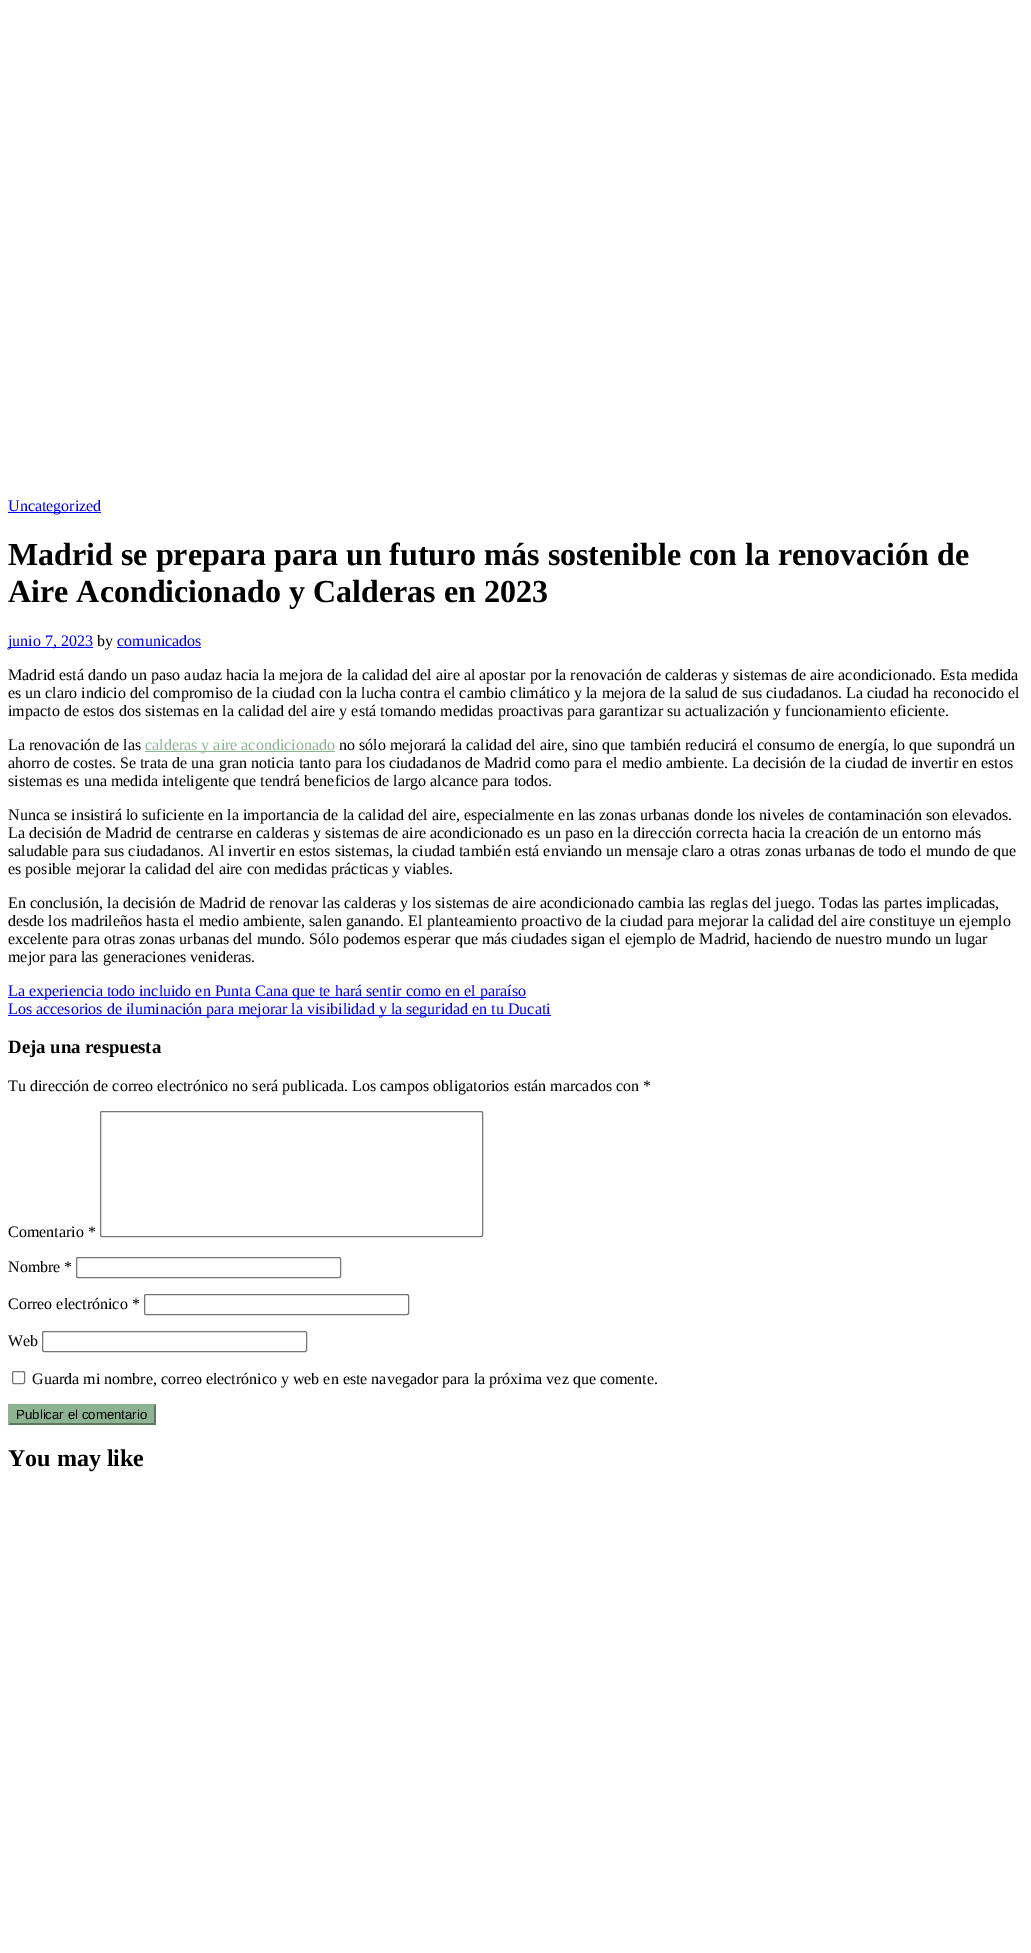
%!PS-Adobe-3.0
%%BoundingBox: 0 0 1031 1953
%%LanguageLevel: 3
%%Pages: 1
%%EndComments
%%BeginProlog
/m { moveto } bind def
/l { lineto } bind def
/h { closepath } bind def
/f { fill } bind def
/S { stroke } bind def
/fn { [ exch dup neg 0 0 3 -1 roll 0 0 ] selectfont } def
/tx { moveto show } def
/bx { rectfill } def
/rr { 5 dict begin { /r /h /w /y /x } { exch def } forall
  x r add y moveto x w add y 2 copy h add r arct x w add y h add x 1 index r arct
  x y h add x y r arct x y 2 copy exch w add exch r arct closepath end } def
%%EndProlog
%%BeginSetup
<< /PageSize [1031 1953] >> setpagedevice
%%EndSetup
%%Page: 1 1
0 1953 translate 1 -1 scale
4 setmiterlimit
1 setgray
0 0 1031 1953 bx
0 0 0.933 setrgbcolor
8 512 93 1 bx
/LiberationSerif-Regular 16 fn
(Uncategorized) 8 511 tx
/LiberationSerif-Bold 32 fn
0 setgray
(Madrid se prepara para un futuro más sostenible con la renovación de) 8 565 tx
(Aire Acondicionado y Calderas en 2023) 8 602 tx
0 0 0.933 setrgbcolor
8 647 85 1 bx
/LiberationSerif-Regular 16 fn
(junio 7, 2023) 8 646 tx
0 setgray
(by) 97 646 tx
0 0 0.933 setrgbcolor
(comunicados) 117 646 tx
117 647 84 1 bx
0 setgray
(Madrid está dando un paso audaz hacia la mejora de la calidad del aire al apostar por la renovación de calderas y sistemas de aire acondicionado. Esta medida) 8 680 tx
(es un claro indicio del compromiso de la ciudad con la lucha contra el cambio climático y la mejora de la salud de sus ciudadanos. La ciudad ha reconocido el) 8 698 tx
(impacto de estos dos sistemas en la calidad del aire y está tomando medidas proactivas para garantizar su actualización y funcionamiento eficiente.) 8 716 tx
(La renovación de las) 8 750 tx
0.553 0.702 0.573 setrgbcolor
145 751 190 1 bx
(calderas y aire acondicionado) 145 750 tx
0 setgray
(no sólo mejorará la calidad del aire, sino que también reducirá el consumo de energía, lo que supondrá un) 339 750 tx
(ahorro de costes. Se trata de una gran noticia tanto para los ciudadanos de Madrid como para el medio ambiente. La decisión de la ciudad de invertir en estos) 8 768 tx
(sistemas es una medida inteligente que tendrá beneficios de largo alcance para todos.) 8 786 tx
(Nunca se insistirá lo suficiente en la importancia de la calidad del aire, especialmente en las zonas urbanas donde los niveles de contaminación son elevados.) 8 820 tx
(La decisión de Madrid de centrarse en calderas y sistemas de aire acondicionado es un paso en la dirección correcta hacia la creación de un entorno más) 8 838 tx
(saludable para sus ciudadanos. Al invertir en estos sistemas, la ciudad también está enviando un mensaje claro a otras zonas urbanas de todo el mundo de que) 8 856 tx
(es posible mejorar la calidad del aire con medidas prácticas y viables.) 8 874 tx
(En conclusión, la decisión de Madrid de renovar las calderas y los sistemas de aire acondicionado cambia las reglas del juego. Todas las partes implicadas,) 8 908 tx
(desde los madrileños hasta el medio ambiente, salen ganando. El planteamiento proactivo de la ciudad para mejorar la calidad del aire constituye un ejemplo) 8 926 tx
(excelente para otras zonas urbanas del mundo. Sólo podemos esperar que más ciudades sigan el ejemplo de Madrid, haciendo de nuestro mundo un lugar) 8 944 tx
(mejor para las generaciones venideras.) 8 962 tx
0 0 0.933 setrgbcolor
8 997 518 1 bx
(La experiencia todo incluido en Punta Cana que te hará sentir como en el paraíso) 8 996 tx
8 1015 543 1 bx
(Los accesorios de iluminación para mejorar la visibilidad y la seguridad en tu Ducati) 8 1014 tx
/LiberationSerif-Bold 18.75 fn
0 setgray
(Deja una respuesta) 8 1053 tx
/LiberationSerif-Regular 16 fn
(Tu dirección de correo electrónico no será publicada. Los campos obligatorios están marcados con *) 8 1091 tx
(Comentario *) 8 1237 tx
0.463 setgray
100.5 1111.5 382 125 1.5 rr S
0 setgray
(Nombre *) 8 1272 tx
0.463 setgray
76.5 1257.5 264 20 1.5 rr S
0 setgray
(Correo electrónico *) 8 1309 tx
0.463 setgray
144.5 1294.5 264 20 1.5 rr S
0 setgray
(Web) 8 1346 tx
0.463 setgray
42.5 1331.5 264 20 1.5 rr S
12.5 1371.5 12 12 1.5 rr S
0 setgray
(Guarda mi nombre, correo electrónico y web en este navegador para la próxima vez que comente.) 32 1384 tx
0.553 0.702 0.573 setrgbcolor
8 1404 148 21 bx
0.369 0.467 0.38 setrgbcolor
156 1404 m 156 1425 l 154 1423 l 154 1406 l h f
156 1425 m 8 1425 l 10 1423 l 154 1423 l h f
0.553 0.702 0.573 setrgbcolor
8 1425 m 8 1404 l 10 1406 l 10 1423 l h f
/LiberationSans-Regular 13.25 fn
0 setgray
(Publicar el comentario) 16 1419 tx
/LiberationSerif-Bold 24 fn
(You may like) 8 1466 tx
showpage
%%EOF
